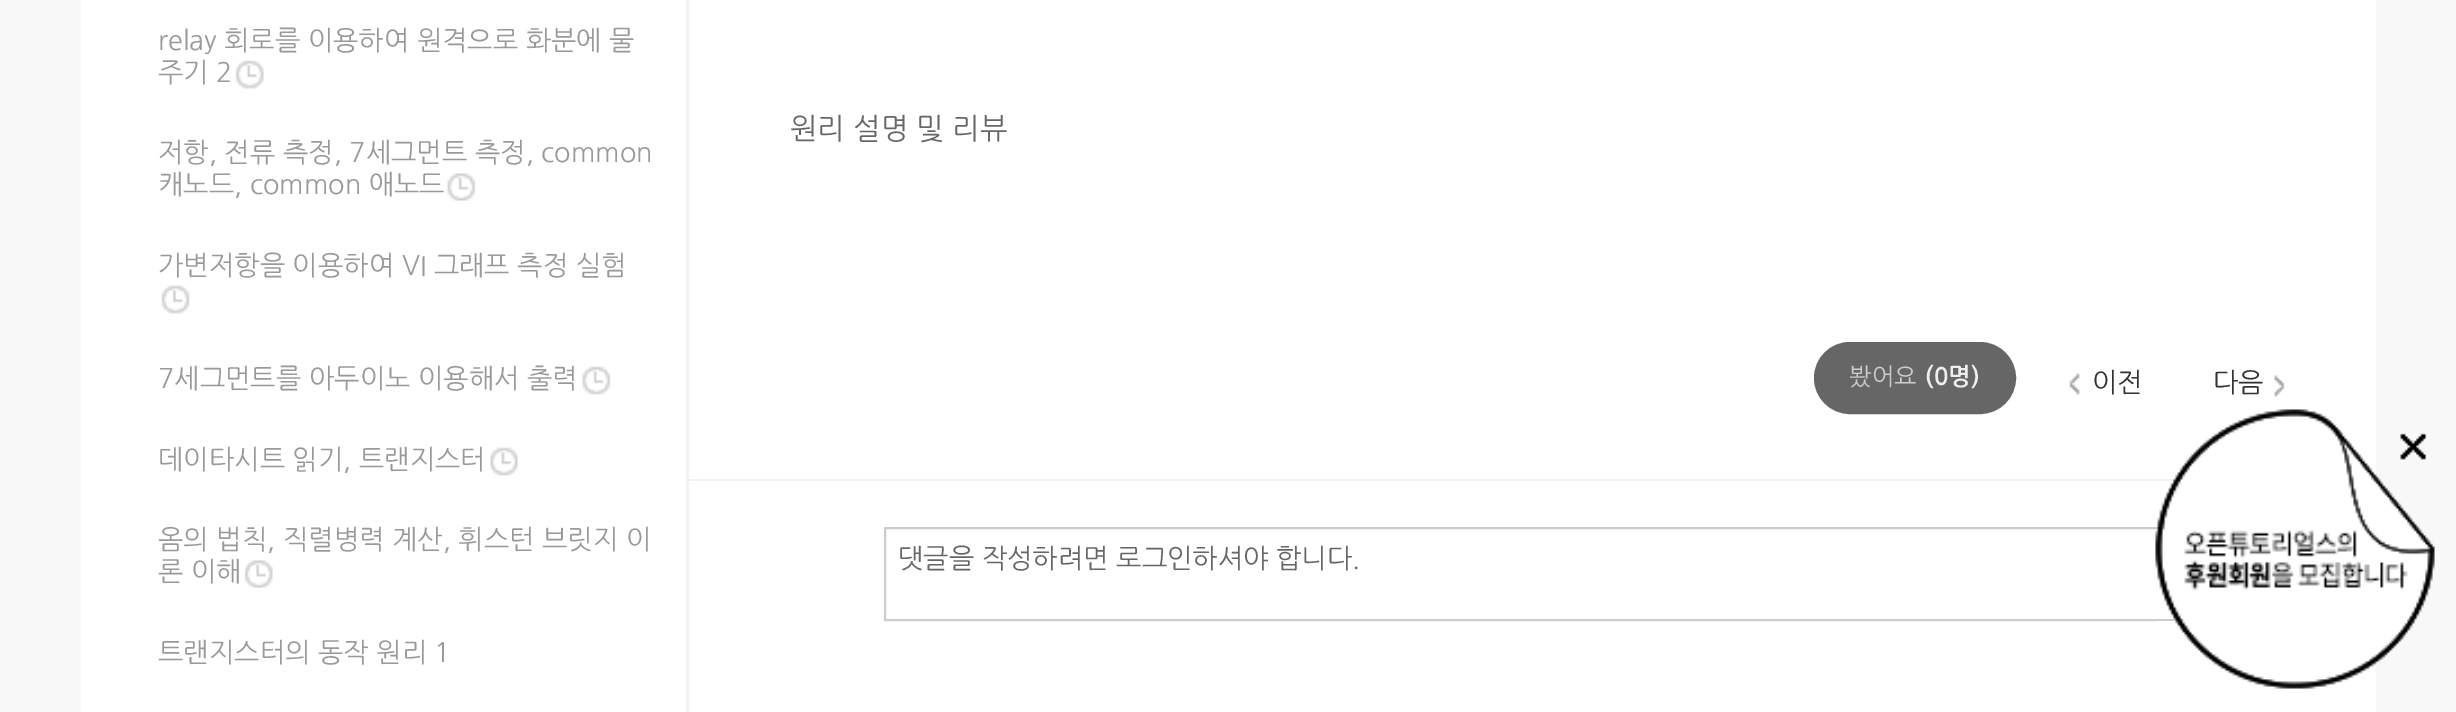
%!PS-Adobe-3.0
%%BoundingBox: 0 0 2456 712
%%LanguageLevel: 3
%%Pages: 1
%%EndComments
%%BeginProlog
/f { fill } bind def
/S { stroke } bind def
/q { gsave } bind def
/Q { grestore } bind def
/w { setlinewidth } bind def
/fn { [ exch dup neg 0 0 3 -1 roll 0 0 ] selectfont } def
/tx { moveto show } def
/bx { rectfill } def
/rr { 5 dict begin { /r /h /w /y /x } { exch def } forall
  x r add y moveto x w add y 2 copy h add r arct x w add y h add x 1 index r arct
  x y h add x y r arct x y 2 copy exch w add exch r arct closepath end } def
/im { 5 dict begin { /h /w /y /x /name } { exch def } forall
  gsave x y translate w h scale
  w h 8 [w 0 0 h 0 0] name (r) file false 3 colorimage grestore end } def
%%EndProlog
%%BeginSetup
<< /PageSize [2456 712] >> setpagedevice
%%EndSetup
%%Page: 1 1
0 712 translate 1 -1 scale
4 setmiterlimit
0.973 setgray
0 0 2456 712 bx
1 setgray
81 0 2295 712 bx
0.949 setgray
686 0 3 712 bx
/NanumGothic-Regular 27 fn
0.6 setgray
(relay 회로를 이용하여 원격으로 화분에 물) 158 50 tx
(주기 2) 158 82 tx
(image0.raw) 235 60 29 29 im
(저항, 전류 측정, 7세그먼트 측정, common) 158 162 tx
(캐노드, common 애노드) 158 194 tx
(image1.raw) 447 173 29 28 im
(가변저항을 이용하여 VI 그래프 측정 실험) 158 275 tx
(image2.raw) 161 285 29 29 im
(7세그먼트를 아두이노 이용해서 출력) 158 388 tx
(image3.raw) 582 366 29 29 im
(데이타시트 읽기, 트랜지스터) 158 469 tx
(image4.raw) 490 447 28 29 im
(옴의 법칙, 직렬병력 계산, 휘스턴 브릿지 이) 158 549 tx
(론 이해) 158 581 tx
(image5.raw) 244 560 29 28 im
(트랜지스터의 동작 원리 1) 158 662 tx
/NanumGothic-Regular 29.25 fn
0.4 setgray
(원리 설명 및 리뷰) 790 139 tx
1815 343 200 70 35 rr q f Q
2 w
S
/NanumGothic-Regular 24 fn
0.8 setgray
(봤어요) 1849 385 tx
/NanumGothic-Bold 24 fn
0.933 setgray
(\(0명\)) 1925 385 tx
(image6.raw) 2069 373 11 23 im
/NanumGothic-Regular 27 fn
0.2 setgray
(이전) 2092 392 tx
(image7.raw) 2274 374 11 23 im
(다음) 2213 392 tx
0.953 setgray
689 479 1495 2 bx
0.8 setgray
885 528 1405 92 rectstroke
0.4 setgray
(댓글을 작성하려면 로그인하셔야 합니다.) 898 568 tx
(image8.raw) 2155 409 280 280 im
(image9.raw) 2400 433 27 27 im
showpage
%%EOF
